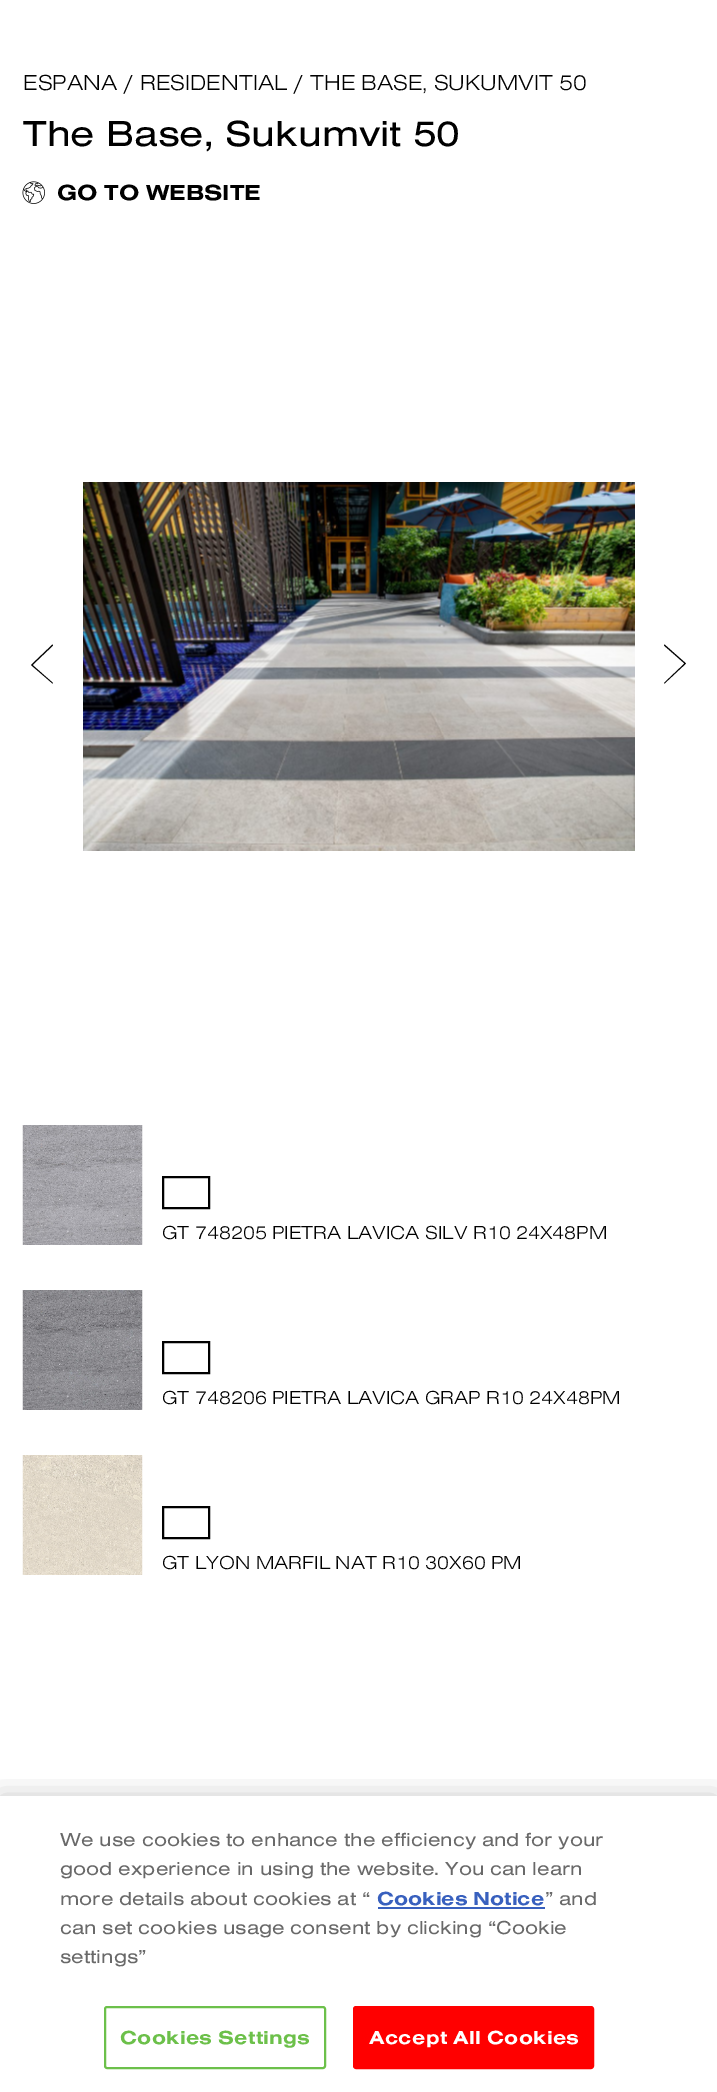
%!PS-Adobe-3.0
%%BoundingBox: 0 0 717 2092
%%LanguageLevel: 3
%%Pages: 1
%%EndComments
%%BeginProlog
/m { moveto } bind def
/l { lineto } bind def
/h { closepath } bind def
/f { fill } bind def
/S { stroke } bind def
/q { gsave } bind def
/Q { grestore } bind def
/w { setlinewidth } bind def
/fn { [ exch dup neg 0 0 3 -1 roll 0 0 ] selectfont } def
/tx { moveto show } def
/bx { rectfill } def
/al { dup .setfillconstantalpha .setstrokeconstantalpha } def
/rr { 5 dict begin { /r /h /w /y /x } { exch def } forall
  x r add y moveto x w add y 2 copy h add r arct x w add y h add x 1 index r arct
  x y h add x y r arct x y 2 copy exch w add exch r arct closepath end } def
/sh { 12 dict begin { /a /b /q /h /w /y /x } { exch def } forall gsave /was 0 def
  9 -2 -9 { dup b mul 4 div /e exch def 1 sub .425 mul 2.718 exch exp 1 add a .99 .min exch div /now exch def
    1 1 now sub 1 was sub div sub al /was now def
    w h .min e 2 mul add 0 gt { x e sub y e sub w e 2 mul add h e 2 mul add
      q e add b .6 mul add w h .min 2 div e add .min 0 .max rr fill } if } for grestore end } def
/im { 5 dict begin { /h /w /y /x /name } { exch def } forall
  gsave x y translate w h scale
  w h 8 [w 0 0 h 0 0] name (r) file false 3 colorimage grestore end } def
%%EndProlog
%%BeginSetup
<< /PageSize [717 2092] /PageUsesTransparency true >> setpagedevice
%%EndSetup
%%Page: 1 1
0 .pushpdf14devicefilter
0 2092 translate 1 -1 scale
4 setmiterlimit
1 setgray
0 0 717 2092 bx
/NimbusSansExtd-Light 22.5 fn
0 setgray
(ESPANA / RESIDENTIAL / THE BASE, SUKUMVIT 50) 23 90 tx
/NimbusSansExtd-Regular 37.5 fn
(The Base, Sukumvit 50) 23 146 tx
(image0.raw) 22 181 23 23 im
/NimbusSansExtd-Bold 22.5 fn
(GO TO WEBSITE) 57 200 tx
52.5 683.5 m 53 683 l 32.5 665 l 53 645.5 l 52.5 644.5 l 31 665 l h f
(image1.raw) 83 482 552 369 im
664.5 644.5 m 664 645.5 l 684.5 663.5 l 664 683 l 664.5 683.5 l 686 663.5 l h f
(image2.raw) 22 1125 121 120 im
2 w
163 1177 46 31 rectstroke
/NimbusSansExtd-Light 19.5 fn
(GT 748205 PIETRA LAVICA SILV R10 24X48PM) 162 1239 tx
(image3.raw) 22 1290 121 120 im
163 1342 46 31 rectstroke
(GT 748206 PIETRA LAVICA GRAP R10 24X48PM) 162 1404 tx
(image4.raw) 22 1455 121 120 im
163 1507 46 31 rectstroke
(GT LYON MARFIL NAT R10 30X60 PM) 162 1569 tx
q
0 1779 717 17 rectclip
0 1796 717 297 0 13.5 0.2 sh
Q
/NimbusSansExtd-Regular 19.5 fn
0.412 setgray
(We use cookies to enhance the efficiency and for your) 60 1846 tx
(good experience in using the website. You can learn) 60 1875 tx
(more details about cookies at “) 60 1905 tx
/NimbusSansExtd-Bold 19.5 fn
0.22 0.376 0.745 setrgbcolor
(Cookies Notice) 377 1905 tx
378 1907 167 2 bx
/NimbusSansExtd-Regular 19.5 fn
0.412 setgray
(” and) 545 1905 tx
(can set cookies usage consent by clicking “Cookie) 60 1934 tx
(settings”) 60 1963 tx
0.424 0.753 0.29 setrgbcolor
105 2007 220 61 2 rr S
/NimbusSansExtd-Bold 19.5 fn
120 2044 m 0.25 0 (Cookies Settings) ashow
1 0 0 setrgbcolor
354 2007 239 61 2 rr q f Q
S
1 setgray
369 2044 m 0.25 0 (Accept All Cookies) ashow
.poppdf14devicefilter showpage
%%EOF
